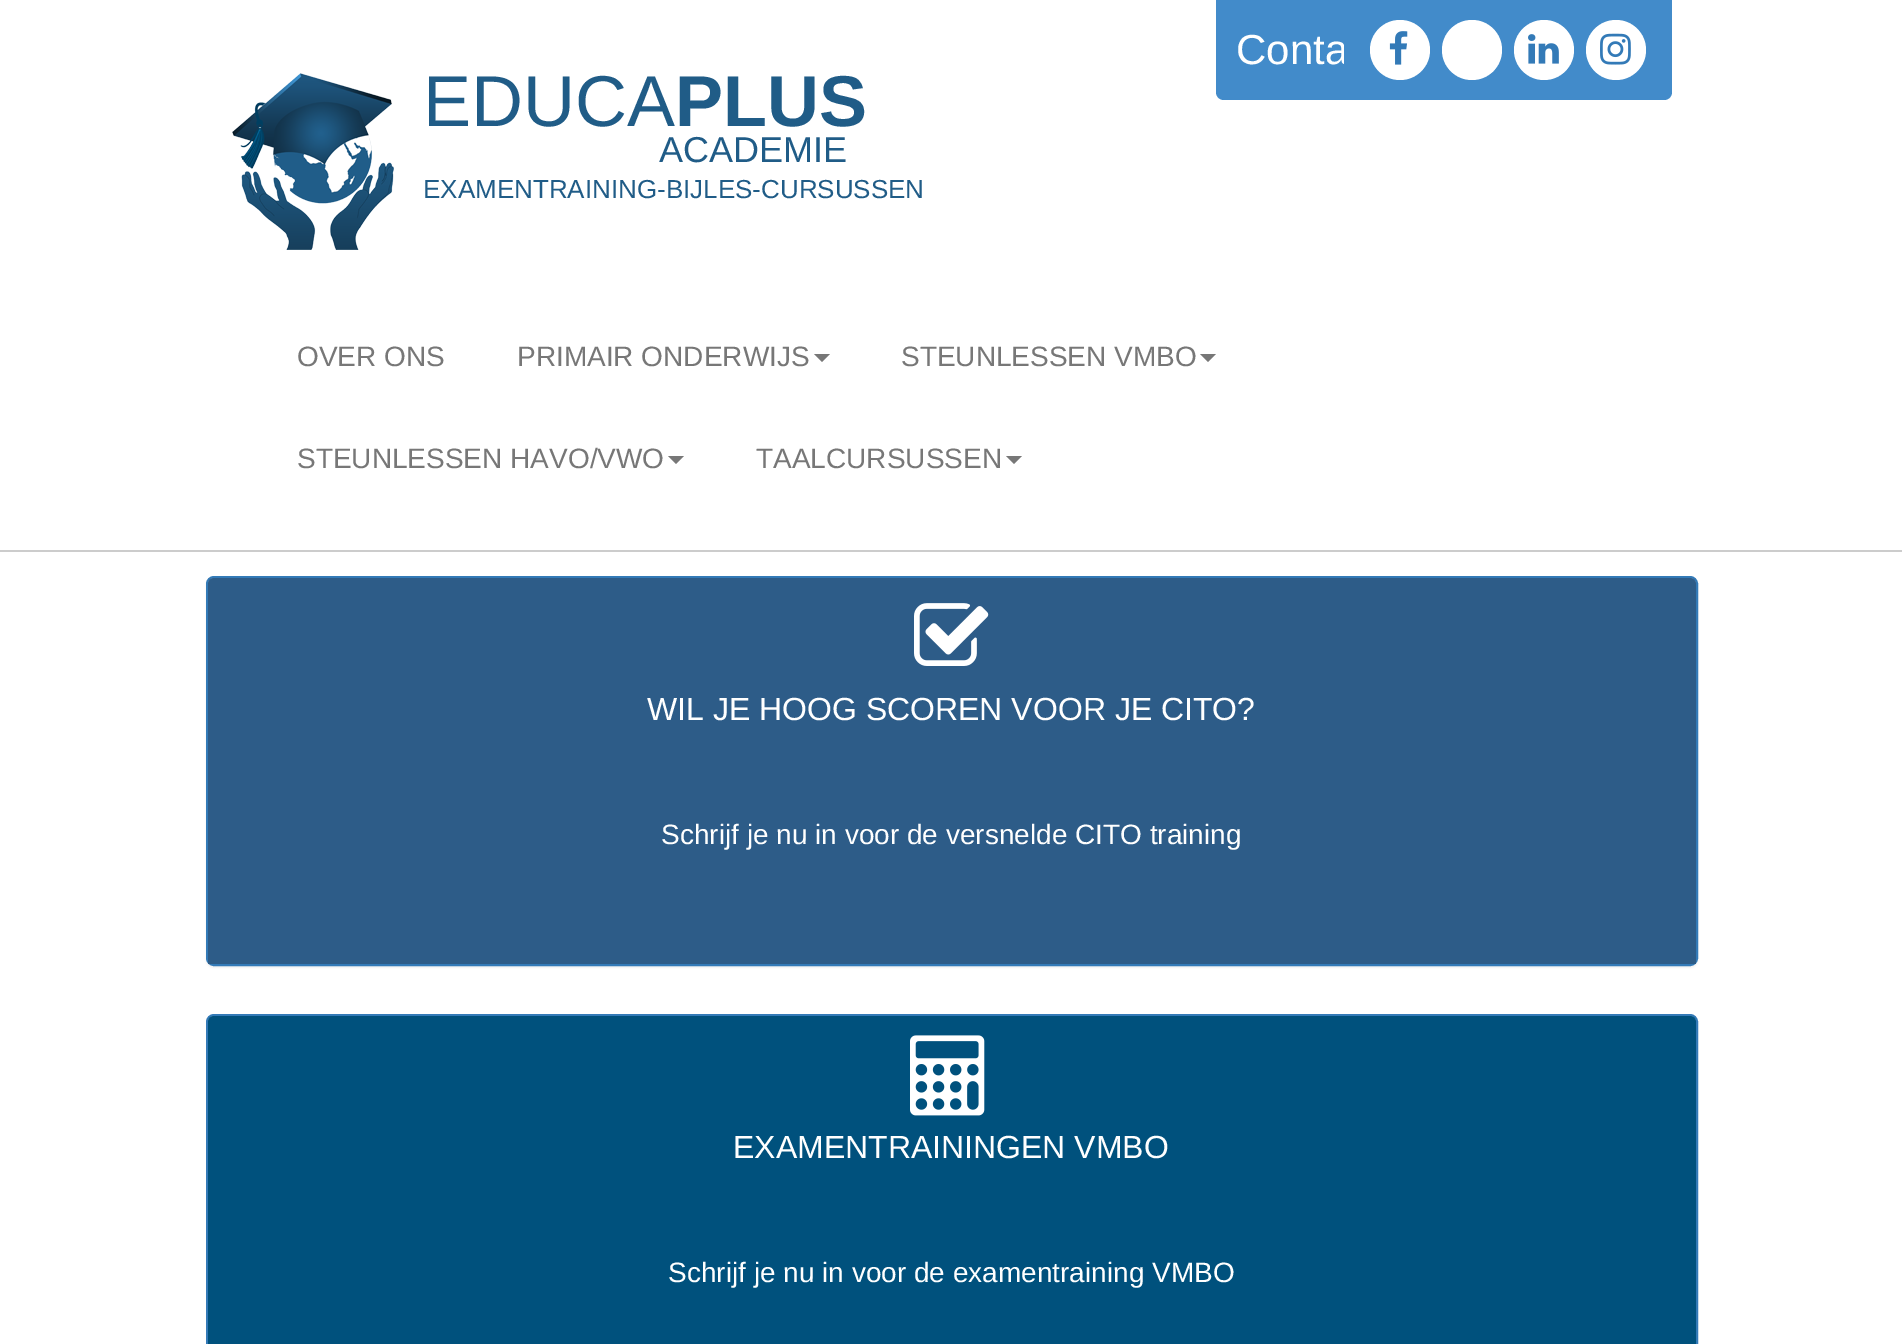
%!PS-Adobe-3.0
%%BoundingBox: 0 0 1902 1344
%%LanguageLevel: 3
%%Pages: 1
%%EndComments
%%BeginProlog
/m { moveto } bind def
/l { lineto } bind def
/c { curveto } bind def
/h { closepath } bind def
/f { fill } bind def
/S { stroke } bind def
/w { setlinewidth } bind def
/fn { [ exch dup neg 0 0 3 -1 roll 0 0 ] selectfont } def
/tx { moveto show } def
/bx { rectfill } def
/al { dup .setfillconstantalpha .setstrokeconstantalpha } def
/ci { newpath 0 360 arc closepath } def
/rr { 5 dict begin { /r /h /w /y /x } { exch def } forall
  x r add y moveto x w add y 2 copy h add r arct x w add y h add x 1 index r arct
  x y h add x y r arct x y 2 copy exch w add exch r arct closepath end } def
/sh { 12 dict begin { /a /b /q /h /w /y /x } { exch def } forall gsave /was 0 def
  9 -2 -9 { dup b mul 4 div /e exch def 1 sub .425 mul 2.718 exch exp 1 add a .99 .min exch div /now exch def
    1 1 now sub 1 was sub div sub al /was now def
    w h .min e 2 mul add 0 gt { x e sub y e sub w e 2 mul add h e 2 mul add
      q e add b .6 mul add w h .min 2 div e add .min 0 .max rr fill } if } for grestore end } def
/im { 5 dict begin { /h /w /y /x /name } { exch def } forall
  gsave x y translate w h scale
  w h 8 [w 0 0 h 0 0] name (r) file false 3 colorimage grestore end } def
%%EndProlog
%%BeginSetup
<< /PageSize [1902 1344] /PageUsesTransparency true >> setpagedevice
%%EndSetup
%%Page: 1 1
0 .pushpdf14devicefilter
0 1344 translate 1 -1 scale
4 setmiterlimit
1 setgray
0 0 1902 1344 bx
0.8 setgray
0 550 1902 2 bx
0.259 0.545 0.792 setrgbcolor
1216 0 m 1402 0 l 1402 92 l 1402 96.5 1398.5 100 1394 100 c 1224 100 l 1219.5 100 1216 96.5 1216 92 c h f
/LiberationSans-Regular 42 fn
1 setgray
(Conta) 1236 64 tx
0.259 0.545 0.792 setrgbcolor
1344 0 m 1672 0 l 1672 92 l 1672 96.5 1668.5 100 1664 100 c 1352 100 l 1347.5 100 1344 96.5 1344 92 c h f
1 setgray
1400 50 30 ci f
(image0.raw) 1389 31 19 34 im
1472 50 30 ci f
(image1.raw) 1492 71 2 1 im
1544 50 30 ci f
(image2.raw) 1528 34 31 30 im
1616 50 30 ci f
(image3.raw) 1600 33 31 32 im
(image4.raw) 232 73 162 177 im
/LiberationSans-Regular 72 fn
0.125 0.361 0.529 setrgbcolor
(EDUCA) 423 126 tx
/LiberationSans-Bold 72 fn
(PLUS) 675 126 tx
/LiberationSans-Regular 36 fn
(ACADEMIE) 659 162 tx
/LiberationSans-Regular 26 fn
(EXAMENTRAINING-BIJLES-CURSUSSEN) 423 198 tx
/LiberationSans-Regular 28 fn
0.467 setgray
(OVER ONS) 297 366 tx
(PRIMAIR ONDERWIJS) 517 366 tx
814 354 m 830 354 l 822 362 l h f
(STEUNLESSEN VMBO) 901 366 tx
1200 354 m 1216 354 l 1208 362 l h f
(STEUNLESSEN HAVO/VWO) 297 468 tx
668 456 m 684 456 l 676 464 l h f
(TAALCURSUSSEN) 756 468 tx
1006 456 m 1022 456 l 1014 464 l h f
0 setgray
206 578 1492 390 8 1 0.05 sh
0.2 0.478 0.718 setrgbcolor
2 w
207 577 1490 388 7 rr S
0.176 0.361 0.533 setrgbcolor
214 578 m 1690 578 l 1693.5 578 1696 580.5 1696 584 c 1696 784 l 208 784 l 208 584 l 208 580.5 210.5 578 214 578 c h f
(image5.raw) 914 603 75 63 im
/LiberationSans-Regular 32 fn
1 setgray
(WIL JE HOOG SCOREN VOOR JE CITO?) 647 720 tx
0.176 0.361 0.533 setrgbcolor
208 784 1488 180 bx
/LiberationSans-Regular 28 fn
1 setgray
(Schrijf je nu in voor de versnelde CITO training) 661 844 tx
0.2 0.478 0.718 setrgbcolor
207 1015 1490 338 7 rr S
0 0.318 0.49 setrgbcolor
214 1016 m 1690 1016 l 1693.5 1016 1696 1018.5 1696 1022 c 1696 1222 l 208 1222 l 208 1022 l 208 1018.5 210.5 1016 214 1016 c h f
(image6.raw) 910 1035 75 81 im
/LiberationSans-Regular 32 fn
1 setgray
(EXAMENTRAININGEN VMBO) 733 1158 tx
0 0.318 0.49 setrgbcolor
208 1222 1488 122 bx
/LiberationSans-Regular 28 fn
1 setgray
(Schrijf je nu in voor de examentraining VMBO) 668 1282 tx
.poppdf14devicefilter showpage
%%EOF
